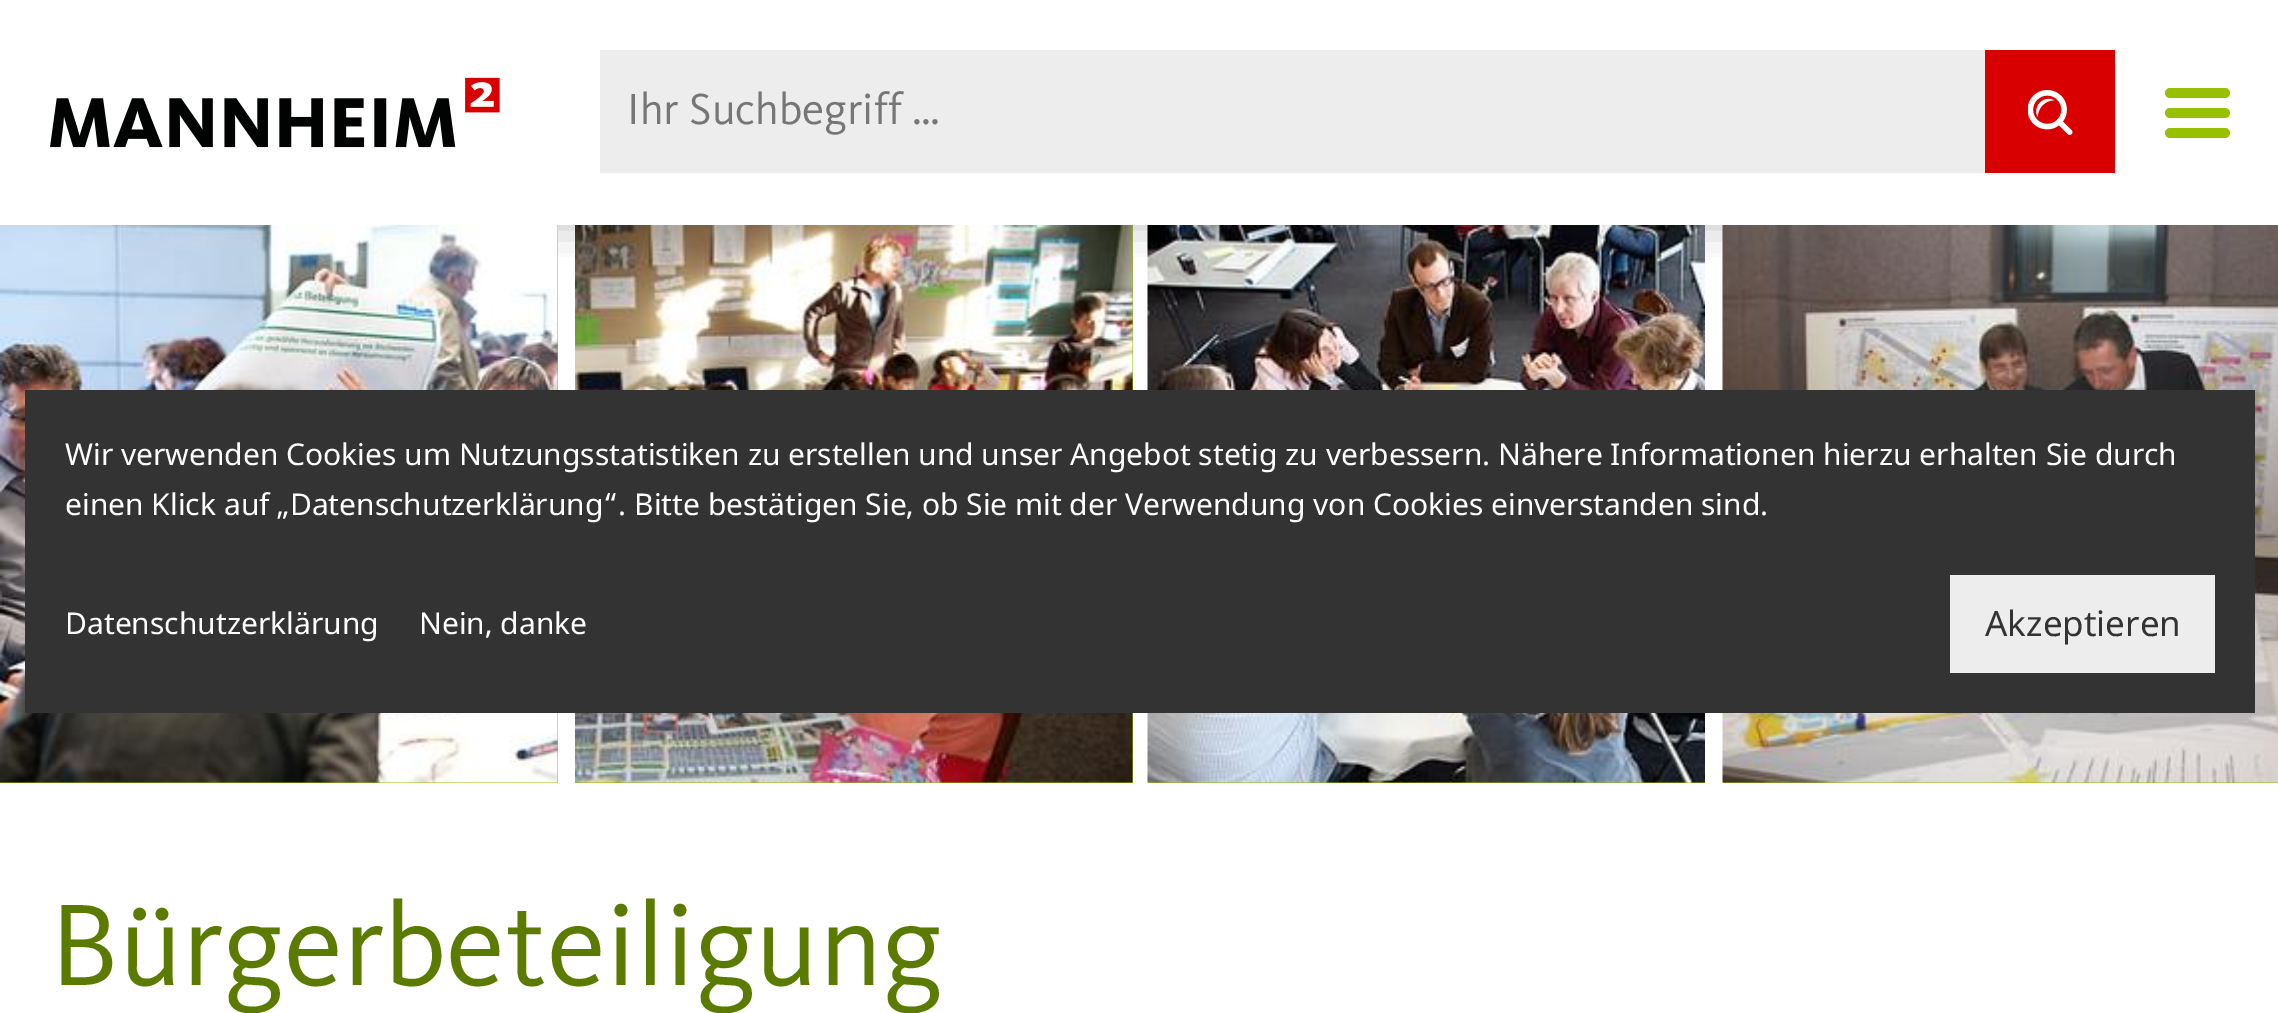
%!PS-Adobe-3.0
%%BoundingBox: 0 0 2278 1013
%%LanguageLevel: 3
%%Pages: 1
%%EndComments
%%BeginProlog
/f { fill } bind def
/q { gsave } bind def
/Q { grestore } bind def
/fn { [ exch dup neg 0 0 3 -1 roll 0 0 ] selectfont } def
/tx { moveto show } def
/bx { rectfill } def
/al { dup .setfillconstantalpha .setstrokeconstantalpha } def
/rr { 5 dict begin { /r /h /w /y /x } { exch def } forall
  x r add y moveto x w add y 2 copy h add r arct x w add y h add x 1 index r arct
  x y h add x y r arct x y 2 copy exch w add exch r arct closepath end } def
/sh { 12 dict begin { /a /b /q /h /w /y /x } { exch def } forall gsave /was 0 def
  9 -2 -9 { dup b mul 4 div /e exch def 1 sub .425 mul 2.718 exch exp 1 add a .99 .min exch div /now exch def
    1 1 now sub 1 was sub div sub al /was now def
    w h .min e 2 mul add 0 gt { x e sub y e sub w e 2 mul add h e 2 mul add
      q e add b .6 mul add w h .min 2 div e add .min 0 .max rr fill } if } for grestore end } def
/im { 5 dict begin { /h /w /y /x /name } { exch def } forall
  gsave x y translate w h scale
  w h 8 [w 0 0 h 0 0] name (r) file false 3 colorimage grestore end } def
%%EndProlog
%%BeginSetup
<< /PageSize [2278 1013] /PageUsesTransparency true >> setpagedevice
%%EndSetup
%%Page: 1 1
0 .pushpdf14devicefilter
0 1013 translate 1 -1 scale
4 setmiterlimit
1 setgray
0 0 2278 1013 bx
q
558 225 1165 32 rectclip
0 setgray
0 0 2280 225 0 22.5 0.25 sh
Q
(image0.raw) 50 77 450 71 im
0.929 setgray
600 50 1385 123 bx
/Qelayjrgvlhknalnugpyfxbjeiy-Regular 45 fn
0.463 setgray
(Ihr Suchbegriff …) 627 124 tx
0.847 0 0 setrgbcolor
1985 50 130 123 bx
(image1.raw) 2028 90 45 45 im
0.588 0.753 0 setrgbcolor
2165 128 65 10 5 rr f
2165 108 65 10 5 rr f
2165 88 65 10 5 rr f
0 225 558 558 bx
(image2.raw) 0 225 558 558 im
575 225 558 558 bx
(image3.raw) 575 225 558 558 im
1148 782 557 1 bx
(image4.raw) 1147 225 558 558 im
1723 782 555 1 bx
(image5.raw) 1722 225 556 558 im
/Qelayjrgvlhknalnugpyfxbjeiy-Regular 120 fn
0.353 0.482 0 setrgbcolor
(Bürgerbeteiligung) 50 985 tx
0.2 setgray
25 390 2230 323 bx
/NotoSans-Regular 30 fn
1 setgray
(Wir verwenden Cookies um Nutzungsstatistiken zu erstellen und unser Angebot stetig zu verbessern. Nähere Informationen hierzu erhalten Sie durch) 65 465 tx
(einen Klick auf „Datenschutzerklärung“. Bitte bestätigen Sie, ob Sie mit der Verwendung von Cookies einverstanden sind.) 65 515 tx
(Datenschutzerklärung) 65 634 tx
(Nein, danke) 419 634 tx
0.929 setgray
1950 575 265 98 bx
/NotoSans-Regular 35 fn
0.2 setgray
(Akzeptieren) 1985 636 tx
.poppdf14devicefilter showpage
%%EOF
